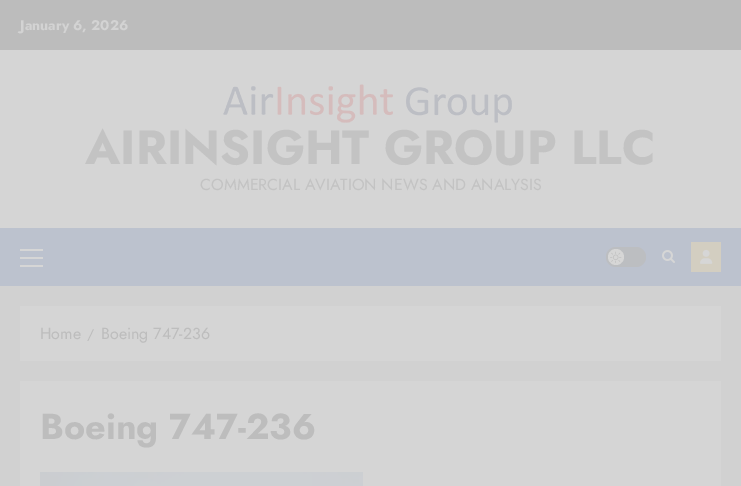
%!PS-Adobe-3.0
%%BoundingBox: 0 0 741 486
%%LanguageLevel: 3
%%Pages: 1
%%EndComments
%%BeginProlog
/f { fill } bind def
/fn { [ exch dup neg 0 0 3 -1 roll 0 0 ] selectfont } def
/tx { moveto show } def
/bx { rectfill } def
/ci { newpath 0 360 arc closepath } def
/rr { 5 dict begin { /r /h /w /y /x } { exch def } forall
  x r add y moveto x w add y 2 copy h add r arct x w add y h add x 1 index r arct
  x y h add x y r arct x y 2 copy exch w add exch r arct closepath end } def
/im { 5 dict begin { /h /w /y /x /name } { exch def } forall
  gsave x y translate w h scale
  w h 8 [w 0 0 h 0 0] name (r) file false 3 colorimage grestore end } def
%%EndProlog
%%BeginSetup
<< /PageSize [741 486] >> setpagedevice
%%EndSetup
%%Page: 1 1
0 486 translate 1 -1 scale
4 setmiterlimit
0.82 setgray
0 0 741 486 bx
0.737 setgray
0 0 741 50 bx
/Jost-Bold 14 fn
0.827 setgray
(January 6, 2026) 20 30 tx
0.835 setgray
0 50 741 178 bx
(image0.raw) 223 84 289 39 im
/Jost-Bold 48 fn
0.765 setgray
(AIRINSIGHT GROUP LLC) 85 164 tx
/Jost-Regular 16 fn
(COMMERCIAL AVIATION NEWS AND ANALYSIS) 200 190 tx
0.737 0.761 0.808 setrgbcolor
0 228 741 58 bx
0.839 setgray
20 257 23 2 bx
20 249 23 2 bx
20 265 23 2 bx
0.737 0.745 0.757 setrgbcolor
606 247 40 20 10 rr f
0.839 setgray
616 257 8 ci f
(image1.raw) 610 251 12 12 im
(image2.raw) 662 250 13 13 im
0.827 0.808 0.757 setrgbcolor
691 242 30 30 bx
(image3.raw) 700 249 13 15 im
0.835 setgray
20 306 701 55 bx
0.741 setgray
(Home) 40 339 tx
/Jost-Regular 14 fn
(/) 87 339 tx
/Jost-Regular 16 fn
(Boeing 747-236) 101 339 tx
0.835 setgray
20 381 701 105 bx
/Jost-Bold 36 fn
0.741 setgray
(Boeing 747-236) 40 439 tx
(image4.raw) 40 472 323 14 im
showpage
%%EOF
